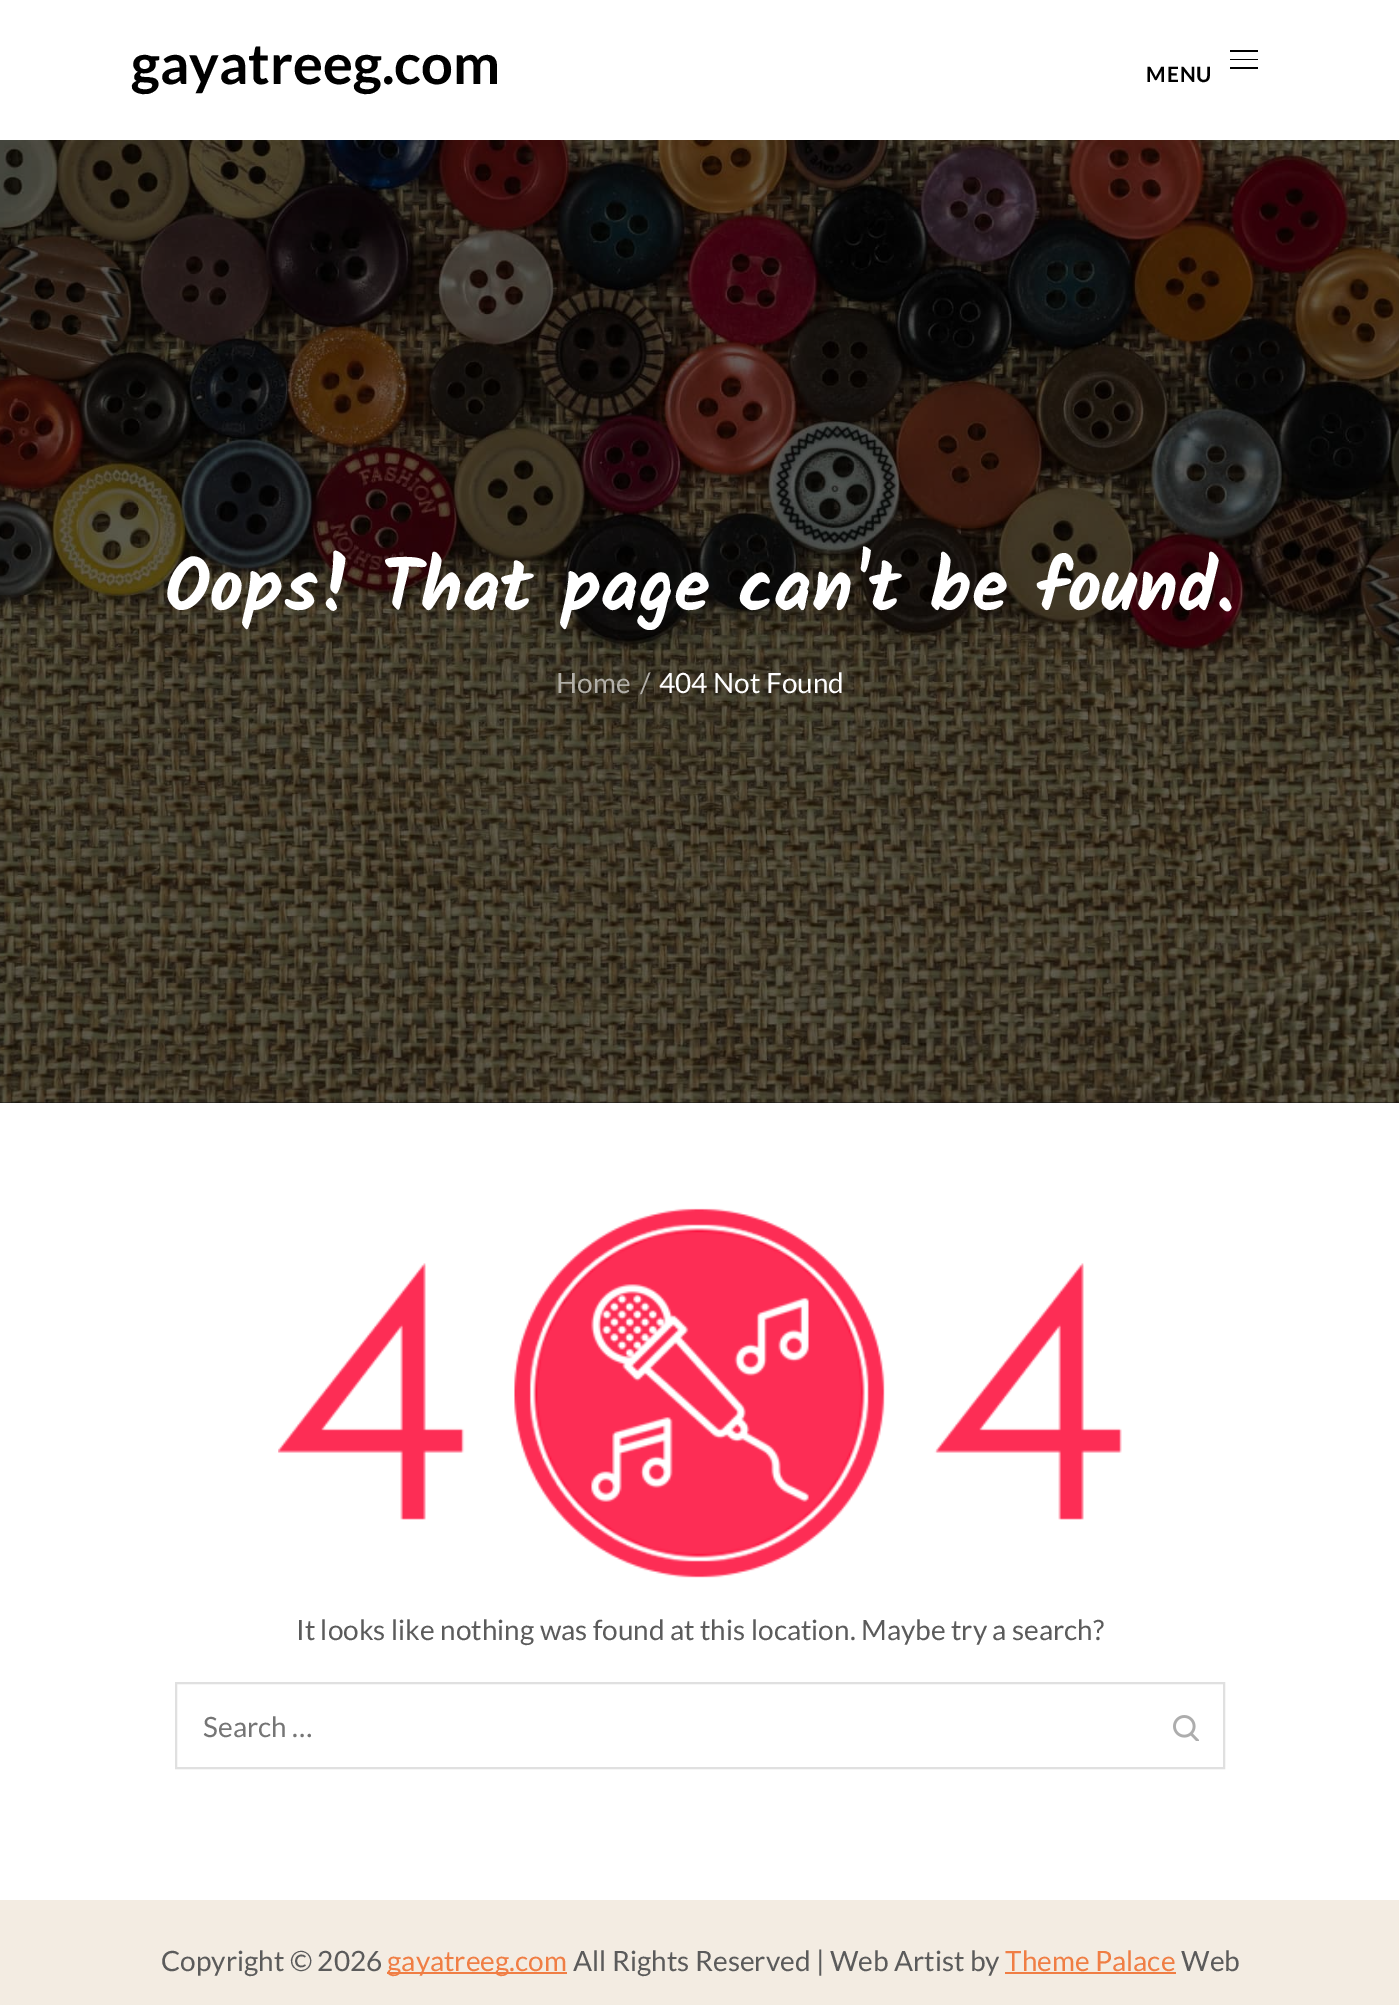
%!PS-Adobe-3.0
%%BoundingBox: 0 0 1399 2005
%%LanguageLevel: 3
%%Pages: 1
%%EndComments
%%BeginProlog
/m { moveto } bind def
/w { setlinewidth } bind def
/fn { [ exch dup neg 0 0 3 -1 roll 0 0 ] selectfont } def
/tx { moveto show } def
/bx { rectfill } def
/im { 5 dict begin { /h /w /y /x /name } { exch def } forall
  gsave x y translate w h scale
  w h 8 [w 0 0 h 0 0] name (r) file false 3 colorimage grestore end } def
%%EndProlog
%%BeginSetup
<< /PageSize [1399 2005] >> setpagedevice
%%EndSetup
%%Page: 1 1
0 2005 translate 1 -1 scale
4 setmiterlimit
1 setgray
0 0 1399 2005 bx
/Lato-Bold 56 fn
0 setgray
(gayatreeg.com) 131 84 tx
1230 50 28 2 bx
1230 59 28 1 bx
1230 67 28 2 bx
/Lato-Bold 21 fn
1146 82 m 1 0 (MENU) ashow
0.078 setgray
0 1102 1399 1 bx
(image0.raw) 0 140 1399 963 im
/Kalam-Bold 73.5 fn
1 setgray
(Oops! That page can't be found.) 165 611 tx
/Lato-Regular 28 fn
0.698 0.686 0.659 setrgbcolor
(Home) 556 693 tx
(/) 640 693 tx
1 setgray
(404 Not Found) 659 693 tx
(image1.raw) 278 1208 844 370 im
0.357 setgray
(It looks like nothing was found at this location. Maybe try a search?) 296 1640 tx
0.878 setgray
2 w
176 1683 1048 85 rectstroke
0.459 setgray
(Search …) 203 1737 tx
(image2.raw) 1173 1715 26 26 im
0.953 0.925 0.886 setrgbcolor
0 1900 1399 105 bx
0.357 setgray
(Copyright © 2026) 161 1971 tx
0.941 0.494 0.267 setrgbcolor
387 1972 180 2 bx
(gayatreeg.com) 387 1971 tx
0.357 setgray
(All Rights Reserved | Web Artist by) 573 1971 tx
0.941 0.494 0.267 setrgbcolor
(Theme Palace) 1005 1971 tx
1005 1972 171 2 bx
0.357 setgray
(Web) 1181 1971 tx
showpage
%%EOF
